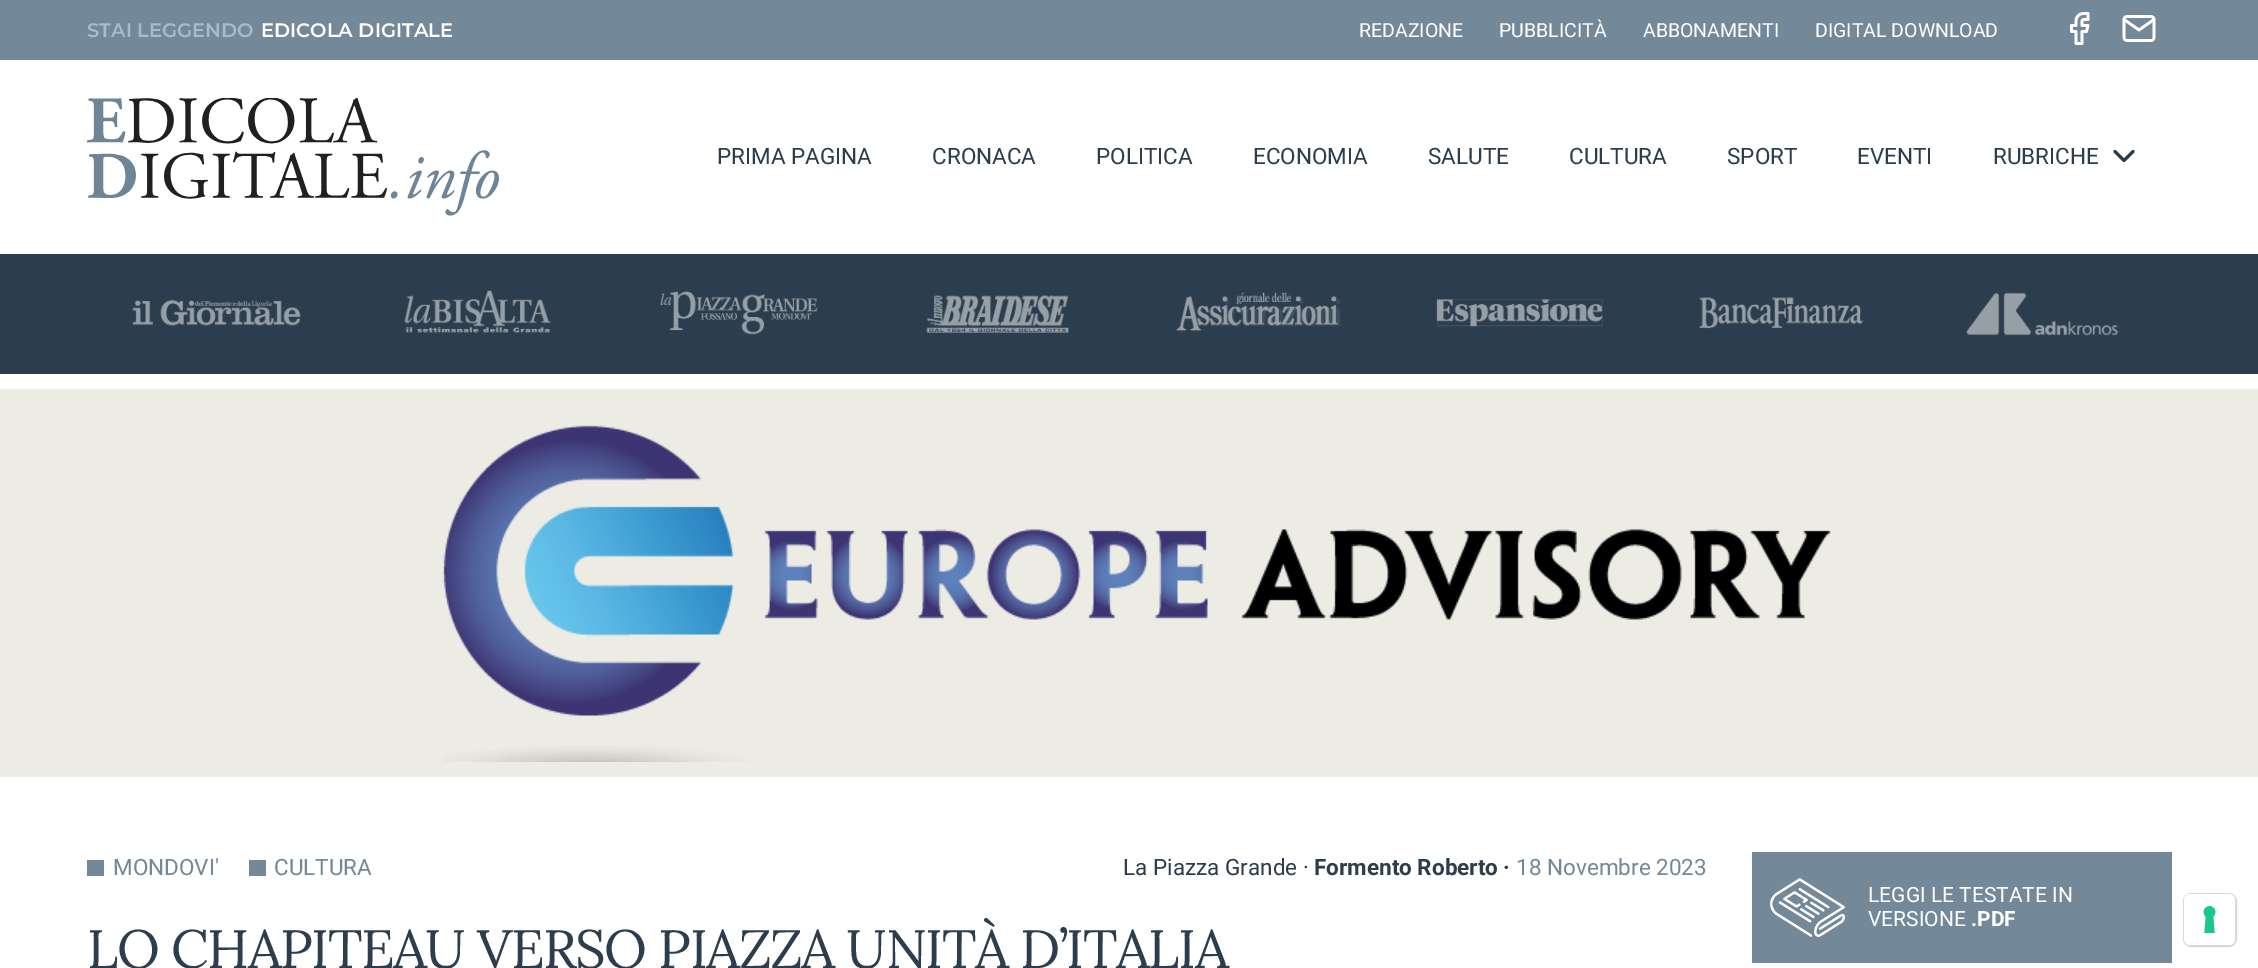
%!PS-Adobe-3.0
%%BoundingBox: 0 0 2258 968
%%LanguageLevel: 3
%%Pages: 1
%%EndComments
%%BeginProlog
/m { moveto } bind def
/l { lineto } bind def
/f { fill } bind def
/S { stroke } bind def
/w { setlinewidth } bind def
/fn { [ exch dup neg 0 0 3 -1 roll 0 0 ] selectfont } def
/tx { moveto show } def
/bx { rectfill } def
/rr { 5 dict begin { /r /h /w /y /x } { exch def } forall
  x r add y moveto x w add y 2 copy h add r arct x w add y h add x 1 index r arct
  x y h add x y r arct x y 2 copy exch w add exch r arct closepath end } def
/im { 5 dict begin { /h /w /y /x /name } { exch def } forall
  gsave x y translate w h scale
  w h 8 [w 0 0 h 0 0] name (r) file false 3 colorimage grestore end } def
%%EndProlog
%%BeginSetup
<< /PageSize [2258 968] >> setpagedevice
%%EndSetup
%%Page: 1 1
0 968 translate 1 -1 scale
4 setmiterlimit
1 setgray
0 0 2258 968 bx
0.451 0.533 0.6 setrgbcolor
0 0 2258 60 bx
/Montserrat-Thin 19.5 fn
0.643 0.737 0.812 setrgbcolor
(STAI LEGGENDO) 87 37 tx
1 setgray
(EDICOLA DIGITALE) 261 37 tx
/Roboto-Regular 19.5 fn
(REDAZIONE) 1359 37 tx
(PUBBLICITÀ) 1499 37 tx
(ABBONAMENTI) 1643 37 tx
(DIGITAL DOWNLOAD) 1815 37 tx
(image0.raw) 2070 12 20 33 im
(image1.raw) 2122 15 34 27 im
(image2.raw) 87 98 412 118 im
/Roboto-Regular 22.5 fn
0.173 0.239 0.302 setrgbcolor
(PRIMA PAGINA) 717 164 tx
(CRONACA) 932 164 tx
(POLITICA) 1096 164 tx
(ECONOMIA) 1253 164 tx
(SALUTE) 1428 164 tx
(CULTURA) 1569 164 tx
(SPORT) 1727 164 tx
(EVENTI) 1857 164 tx
(RUBRICHE) 1993 164 tx
3 w
1 setlinecap
1 setlinejoin
2115 151.5 m 2124 160.5 l 2133 151.5 l S
0 254 2258 120 bx
(image3.raw) 132 300 169 26 im
(image4.raw) 404 290 147 43 im
(image5.raw) 660 291 158 44 im
(image6.raw) 926 295 143 38 im
(image7.raw) 1176 292 165 40 im
(image8.raw) 1436 299 167 28 im
(image9.raw) 1699 297 164 32 im
(image10.raw) 1966 292 153 44 im
0.925 0.922 0.894 setrgbcolor
0 389 2258 388 bx
(image11.raw) 443 425 1388 337 im
0.451 0.533 0.6 setrgbcolor
87 860 17 16 bx
(MONDOVI') 113 875 tx
249 860 17 16 bx
(CULTURA) 274 875 tx
0.173 0.239 0.302 setrgbcolor
(La Piazza Grande ·) 1123 875 tx
/Roboto-Bold 22.5 fn
(Formento Roberto ·) 1314 875 tx
/Roboto-Regular 22.5 fn
0.451 0.533 0.6 setrgbcolor
(18 Novembre 2023) 1516 875 tx
/Lora-Regular 54 fn
0.173 0.239 0.302 setrgbcolor
87 968 m -1.5 0 (LO CHAPITEAU VERSO PIAZZA UNITÀ D’ITALIA) ashow
0.451 0.533 0.6 setrgbcolor
1752 852 420 111 bx
(image12.raw) 1770 878 75 59 im
/Roboto-Regular 21 fn
1 setgray
(LEGGI LE TESTATE IN) 1868 902 tx
(VERSIONE) 1868 926 tx
/Roboto-Bold 21 fn
(.PDF) 1971 926 tx
0.851 setgray
2 w
0 setlinecap
0 setlinejoin
2184 894 52 52 7 rr S
1 setgray
2184 894 51 51 6 rr f
(image13.raw) 2203 906 13 27 im
showpage
%%EOF
